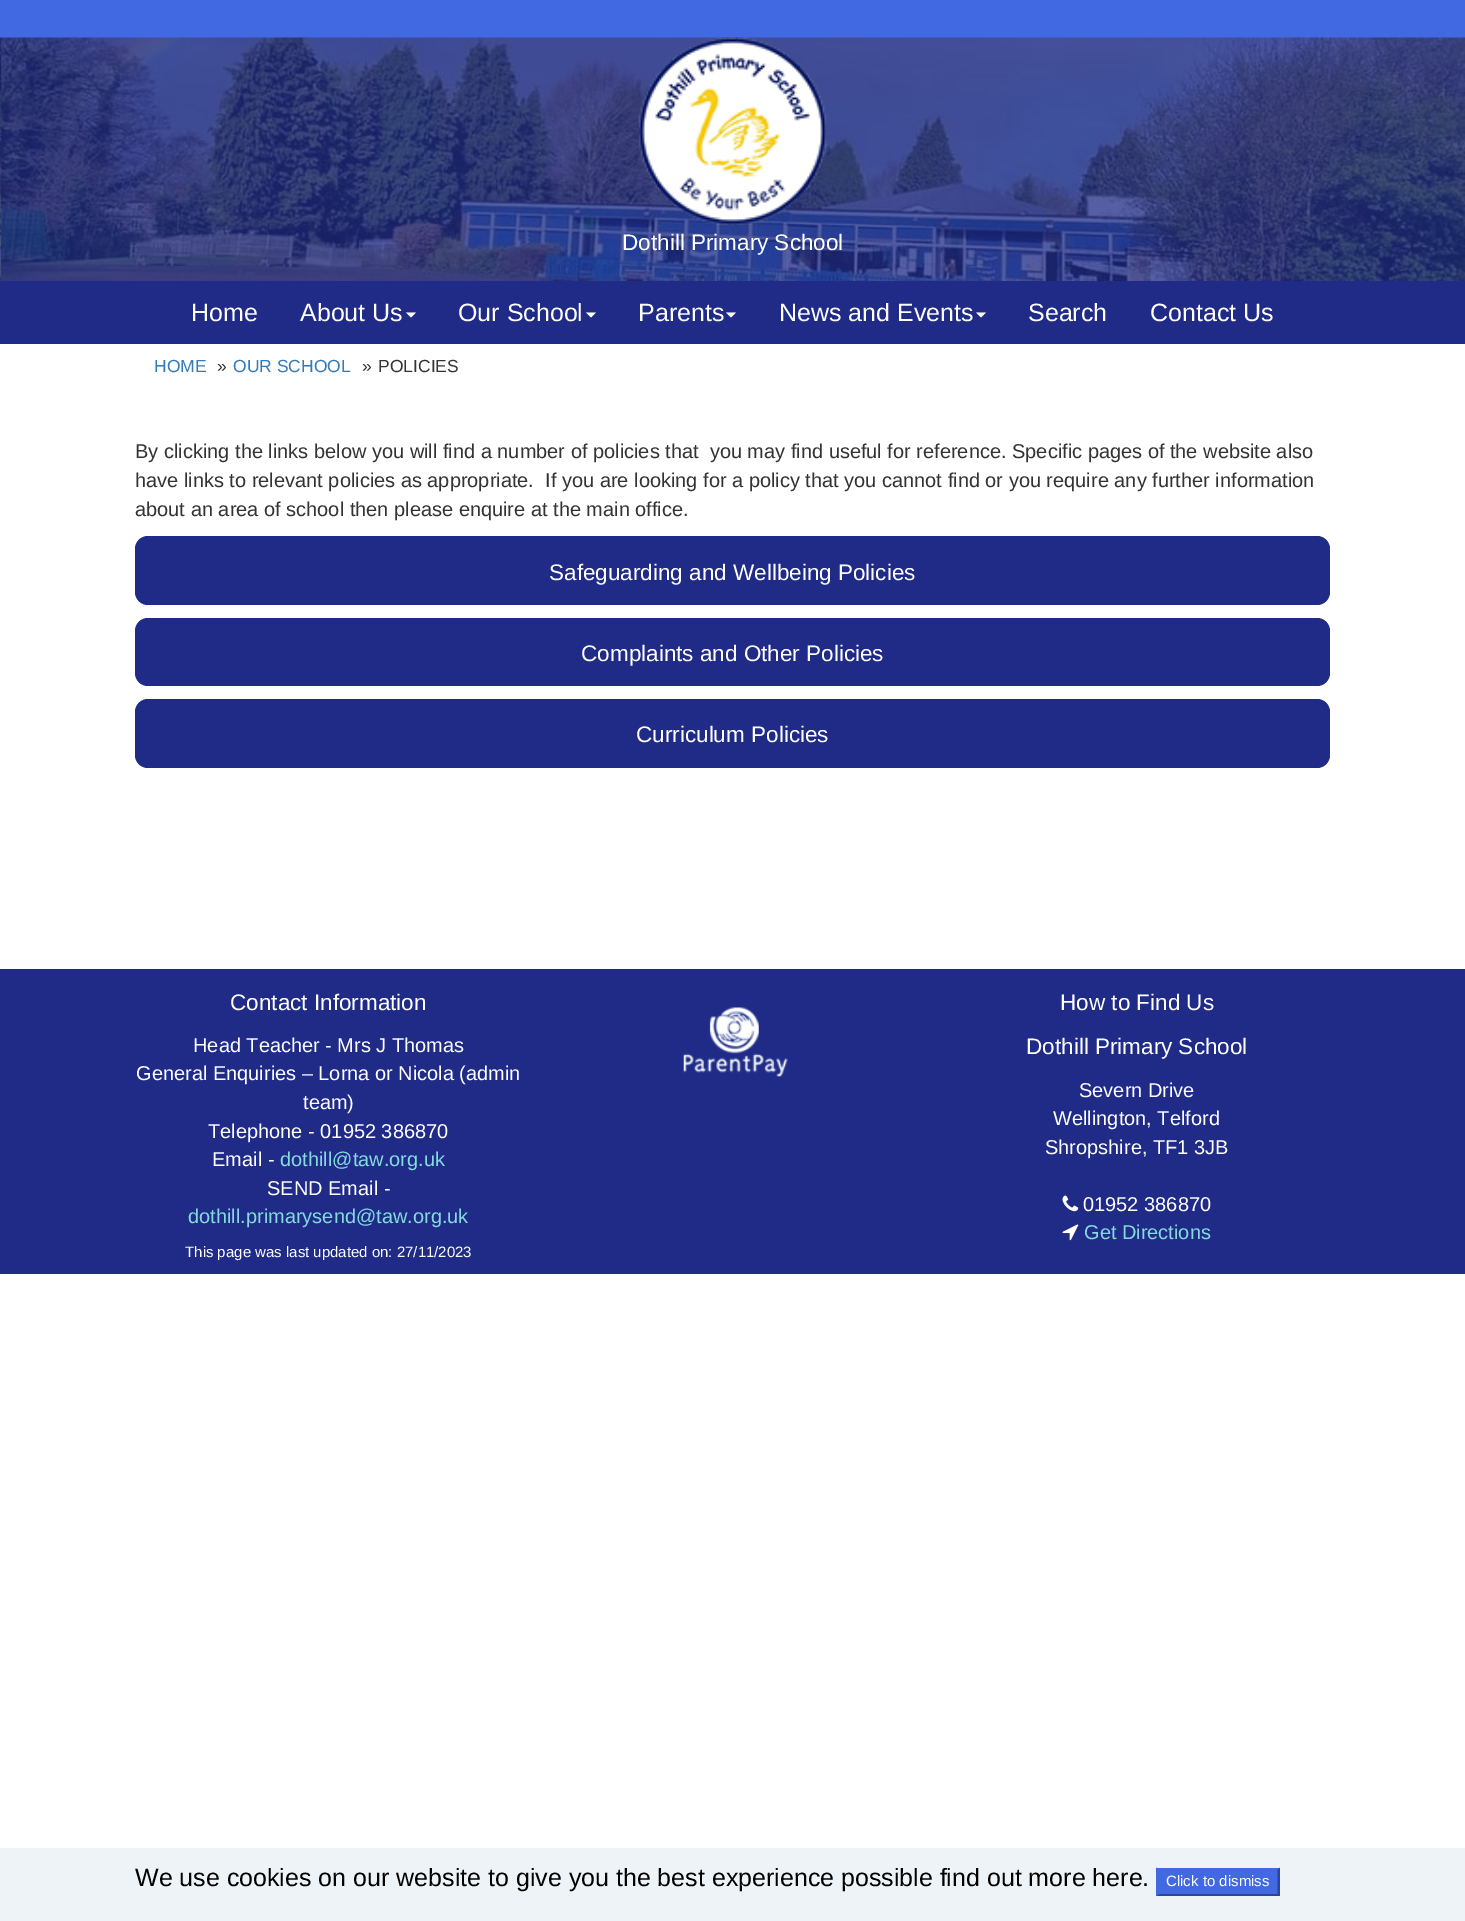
%!PS-Adobe-3.0
%%BoundingBox: 0 0 1465 1921
%%LanguageLevel: 3
%%Pages: 1
%%EndComments
%%BeginProlog
/m { moveto } bind def
/l { lineto } bind def
/h { closepath } bind def
/f { fill } bind def
/fn { [ exch dup neg 0 0 3 -1 roll 0 0 ] selectfont } def
/tx { moveto show } def
/bx { rectfill } def
/rr { 5 dict begin { /r /h /w /y /x } { exch def } forall
  x r add y moveto x w add y 2 copy h add r arct x w add y h add x 1 index r arct
  x y h add x y r arct x y 2 copy exch w add exch r arct closepath end } def
/im { 5 dict begin { /h /w /y /x /name } { exch def } forall
  gsave x y translate w h scale
  w h 8 [w 0 0 h 0 0] name (r) file false 3 colorimage grestore end } def
%%EndProlog
%%BeginSetup
<< /PageSize [1465 1921] >> setpagedevice
%%EndSetup
%%Page: 1 1
0 1921 translate 1 -1 scale
4 setmiterlimit
1 setgray
0 0 1465 1921 bx
0.255 0.412 0.882 setrgbcolor
0 0 1465 38 bx
(image0.raw) 0 37 1465 244 im
(image1.raw) 638 37 189 188 im
/LiberationSans-Regular 22.5 fn
1 setgray
(Dothill Primary School) 622 250 tx
0.122 0.169 0.529 setrgbcolor
0 281 1465 63 bx
/LiberationSans-Regular 25 fn
1 setgray
(Home) 191 321 tx
(About Us) 300 321 tx
406 312.5 m 416 312.5 l 411 317.5 l h f
(Our School) 458 321 tx
586 312.5 m 596 312.5 l 591 317.5 l h f
(Parents) 638 321 tx
726 312.5 m 736 312.5 l 731 317.5 l h f
(News and Events) 779 321 tx
976 312.5 m 986 312.5 l 981 317.5 l h f
(Search) 1028 321 tx
(Contact Us) 1150 321 tx
/LiberationSans-Regular 17.5 fn
0.2 0.478 0.718 setrgbcolor
(HOME) 154 372 tx
0.2 setgray
(») 217 372 tx
0.2 0.478 0.718 setrgbcolor
(OUR SCHOOL) 233 372 tx
0.2 setgray
(») 362 372 tx
(POLICIES) 378 372 tx
/LiberationSans-Regular 20 fn
(By clicking the links below you will find a number of policies that  you may find useful for reference. Specific pages of the website also) 135 458 tx
(have links to relevant policies as appropriate.  If you are looking for a policy that you cannot find or you require any further information) 135 487 tx
(about an area of school then please enquire at the main office.) 135 516 tx
0.122 0.169 0.529 setrgbcolor
135 536 1195 69 13 rr f
/LiberationSans-Regular 22.5 fn
1 setgray
(Safeguarding and Wellbeing Policies) 549 580 tx
0.122 0.169 0.529 setrgbcolor
135 618 1195 68 13 rr f
1 setgray
(Complaints and Other Policies) 581 661 tx
0.122 0.169 0.529 setrgbcolor
135 699 1195 69 13 rr f
1 setgray
(Curriculum Policies) 636 742 tx
0.122 0.169 0.529 setrgbcolor
0 969 1465 305 bx
1 setgray
(Contact Information) 230 1010 tx
/LiberationSans-Regular 20 fn
(Head Teacher - Mrs J Thomas) 193 1052 tx
(General Enquiries – Lorna or Nicola \(admin) 136 1080 tx
(team\)) 303 1109 tx
(Telephone - 01952 386870) 208 1138 tx
(Email -) 212 1166 tx
0.522 0.855 0.878 setrgbcolor
(dothill@taw.org.uk) 280 1166 tx
1 setgray
(SEND Email -) 267 1195 tx
0.522 0.855 0.878 setrgbcolor
(dothill.primarysend@taw.org.uk) 188 1223 tx
/LiberationSans-Regular 15 fn
1 setgray
(This page was last updated on: 27/11/2023) 185 1257 tx
(image2.raw) 683 1007 105 70 im
/LiberationSans-Regular 22.5 fn
(How to Find Us) 1060 1010 tx
(Dothill Primary School) 1026 1054 tx
/LiberationSans-Regular 20 fn
(Severn Drive) 1079 1097 tx
(Wellington, Telford) 1053 1125 tx
(Shropshire, TF1 3JB) 1045 1154 tx
(image3.raw) 1062 1195 17 17 im
(01952 386870) 1083 1211 tx
(image4.raw) 1062 1224 17 17 im
0.522 0.855 0.878 setrgbcolor
(Get Directions) 1084 1239 tx
0.933 0.953 0.969 setrgbcolor
0 1848 1465 73 bx
/LiberationSans-Regular 25 fn
0 setgray
(We use cookies on our website to give you the best experience possible find out more here.) 135 1886 tx
0.255 0.412 0.882 setrgbcolor
1156 1868 124 28 bx
0.169 0.275 0.588 setrgbcolor
1280 1867.5 m 1280 1896 l 1277.5 1894 l 1277.5 1870 l h f
1280 1896 m 1156 1896 l 1159 1894 l 1278 1894 l h f
0.255 0.412 0.882 setrgbcolor
1156 1896 m 1156 1867.5 l 1159 1870 l 1159 1894 l h f
/LiberationSans-Regular 15 fn
1 setgray
(Click to dismiss) 1166 1886 tx
showpage
%%EOF
